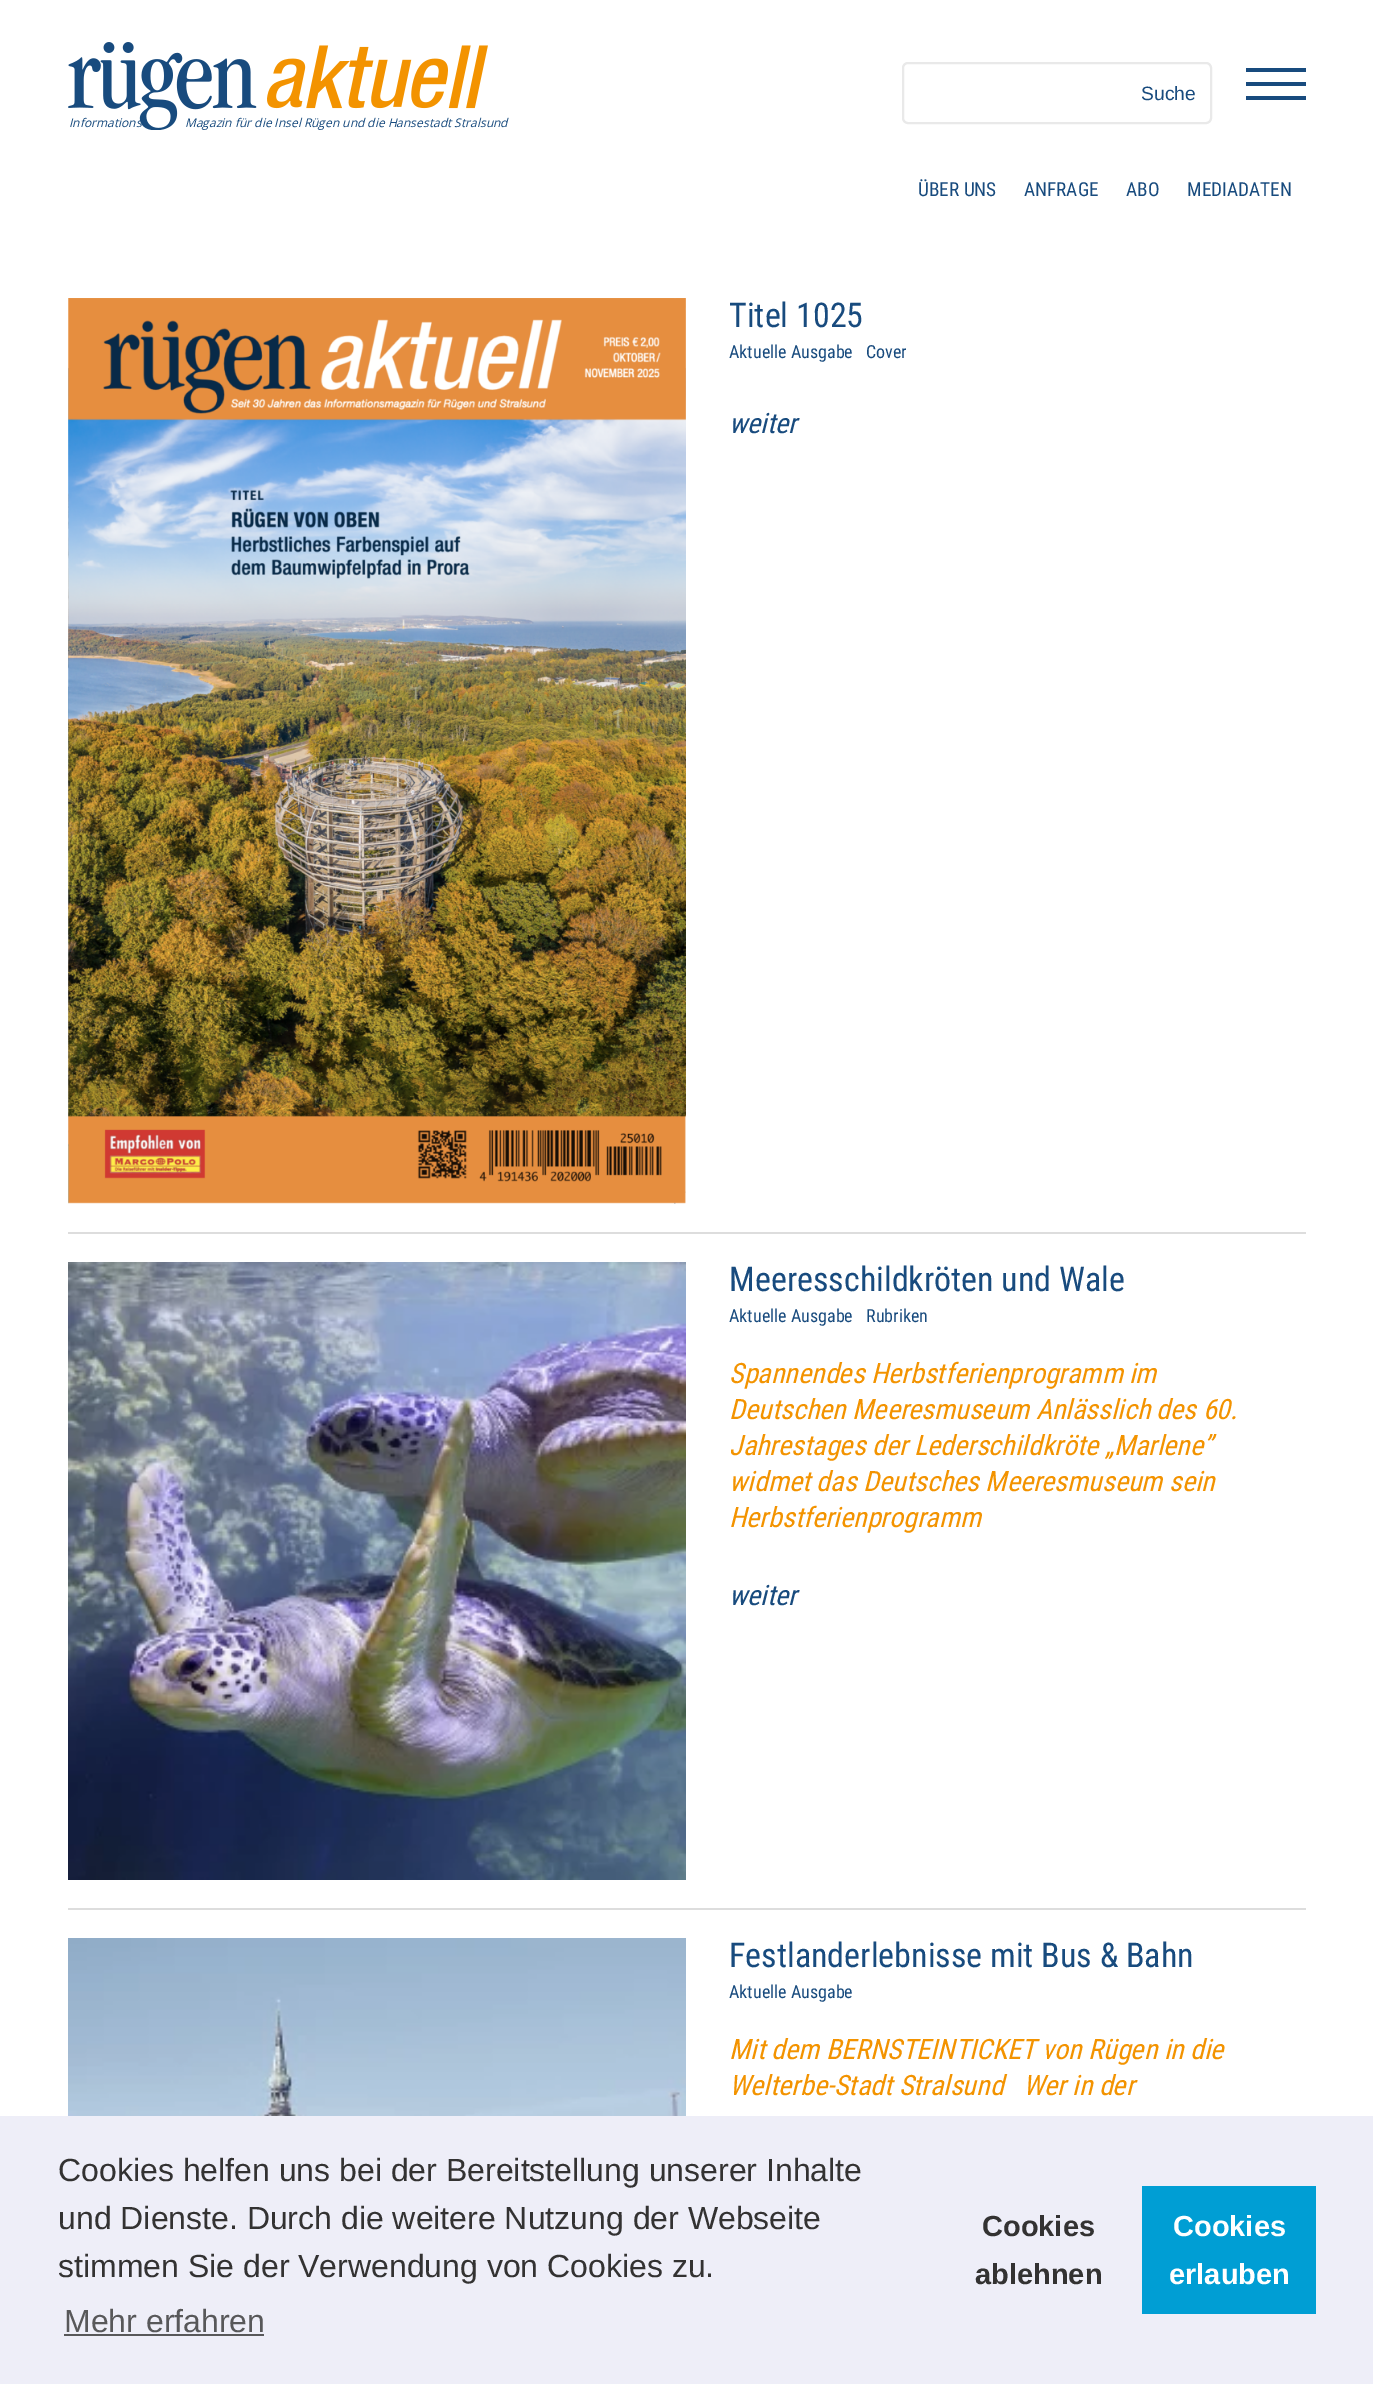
%!PS-Adobe-3.0
%%BoundingBox: 0 0 1373 2384
%%LanguageLevel: 3
%%Pages: 1
%%EndComments
%%BeginProlog
/S { stroke } bind def
/w { setlinewidth } bind def
/fn { [ exch dup neg 0 0 3 -1 roll 0 0 ] selectfont } def
/tx { moveto show } def
/bx { rectfill } def
/rr { 5 dict begin { /r /h /w /y /x } { exch def } forall
  x r add y moveto x w add y 2 copy h add r arct x w add y h add x 1 index r arct
  x y h add x y r arct x y 2 copy exch w add exch r arct closepath end } def
/im { 5 dict begin { /h /w /y /x /name } { exch def } forall
  gsave x y translate w h scale
  w h 8 [w 0 0 h 0 0] name (r) file false 3 colorimage grestore end } def
%%EndProlog
%%BeginSetup
<< /PageSize [1373 2384] >> setpagedevice
%%EndSetup
%%Page: 1 1
0 2384 translate 1 -1 scale
4 setmiterlimit
1 setgray
0 0 1373 2384 bx
0.914 setgray
2 w
903 63 308 60 5 rr S
/LiberationSans-Regular 19.25 fn
0.094 0.294 0.494 setrgbcolor
(Suche) 1141 100 tx
1246 82 60 4 bx
1246 68 60 4 bx
1246 96 60 4 bx
(image0.raw) 68 42 420 88 im
/OpenSans-Italic 12 fn
(Informations) 69 127 tx
(Magazin für die Insel Rügen und die Hansestadt Stralsund) 185 127 tx
/RobotoCondensed-Regular 19.25 fn
(ÜBER UNS) 918 196 tx
(ANFRAGE) 1024 196 tx
(ABO) 1126 196 tx
(MEDIADATEN) 1187 196 tx
0.867 setgray
68 1232 1238 2 bx
(image1.raw) 68 298 618 906 im
/RobotoCondensed-Regular 34 fn
0.094 0.294 0.494 setrgbcolor
(Titel 1025) 729 327 tx
/RobotoCondensed-Regular 18 fn
(Aktuelle Ausgabe) 729 358 tx
(Cover) 866 358 tx
/RobotoCondensed-Italic 28 fn
(weiter) 729 433 tx
0.867 setgray
68 1908 1238 2 bx
(image2.raw) 68 1262 618 618 im
/RobotoCondensed-Regular 34 fn
0.094 0.294 0.494 setrgbcolor
(Meeresschildkröten und Wale) 729 1291 tx
/RobotoCondensed-Regular 18 fn
(Aktuelle Ausgabe) 729 1322 tx
(Rubriken) 866 1322 tx
/RobotoCondensed-Italic 28 fn
0.953 0.576 0 setrgbcolor
(Spannendes Herbstferienprogramm im) 729 1383 tx
(Deutschen Meeresmuseum Anlässlich des 60.) 729 1419 tx
(Jahrestages der Lederschildkröte „Marlene”) 729 1455 tx
(widmet das Deutsches Meeresmuseum sein) 729 1491 tx
(Herbstferienprogramm) 729 1527 tx
0.094 0.294 0.494 setrgbcolor
(weiter) 729 1605 tx
(image3.raw) 68 1938 618 178 im
/RobotoCondensed-Regular 34 fn
(Festlanderlebnisse mit Bus & Bahn) 729 1967 tx
/RobotoCondensed-Regular 18 fn
(Aktuelle Ausgabe) 729 1998 tx
/RobotoCondensed-Italic 28 fn
0.953 0.576 0 setrgbcolor
(Mit dem BERNSTEINTICKET von Rügen in die) 729 2059 tx
(Welterbe-Stadt Stralsund   Wer in der) 729 2095 tx
0.933 0.933 0.973 setrgbcolor
0 2116 1373 268 bx
/LiberationSans-Regular 32 fn
0.2 0.196 0.196 setrgbcolor
(Cookies helfen uns bei der Bereitstellung unserer Inhalte) 58 2181 tx
(und Dienste. Durch die weitere Nutzung der Webseite) 58 2229 tx
(stimmen Sie der Verwendung von Cookies zu.) 58 2277 tx
0.345 0.345 0.353 setrgbcolor
(Mehr erfahren) 64 2332 tx
64 2334 200 2 bx
/LiberationSans-Bold 29 fn
0.2 0.196 0.196 setrgbcolor
(Cookies) 982 2236 tx
(ablehnen) 975 2284 tx
0 0.62 0.831 setrgbcolor
1142 2186 174 128 bx
1 setgray
(Cookies) 1173 2236 tx
(erlauben) 1169 2284 tx
showpage
%%EOF
